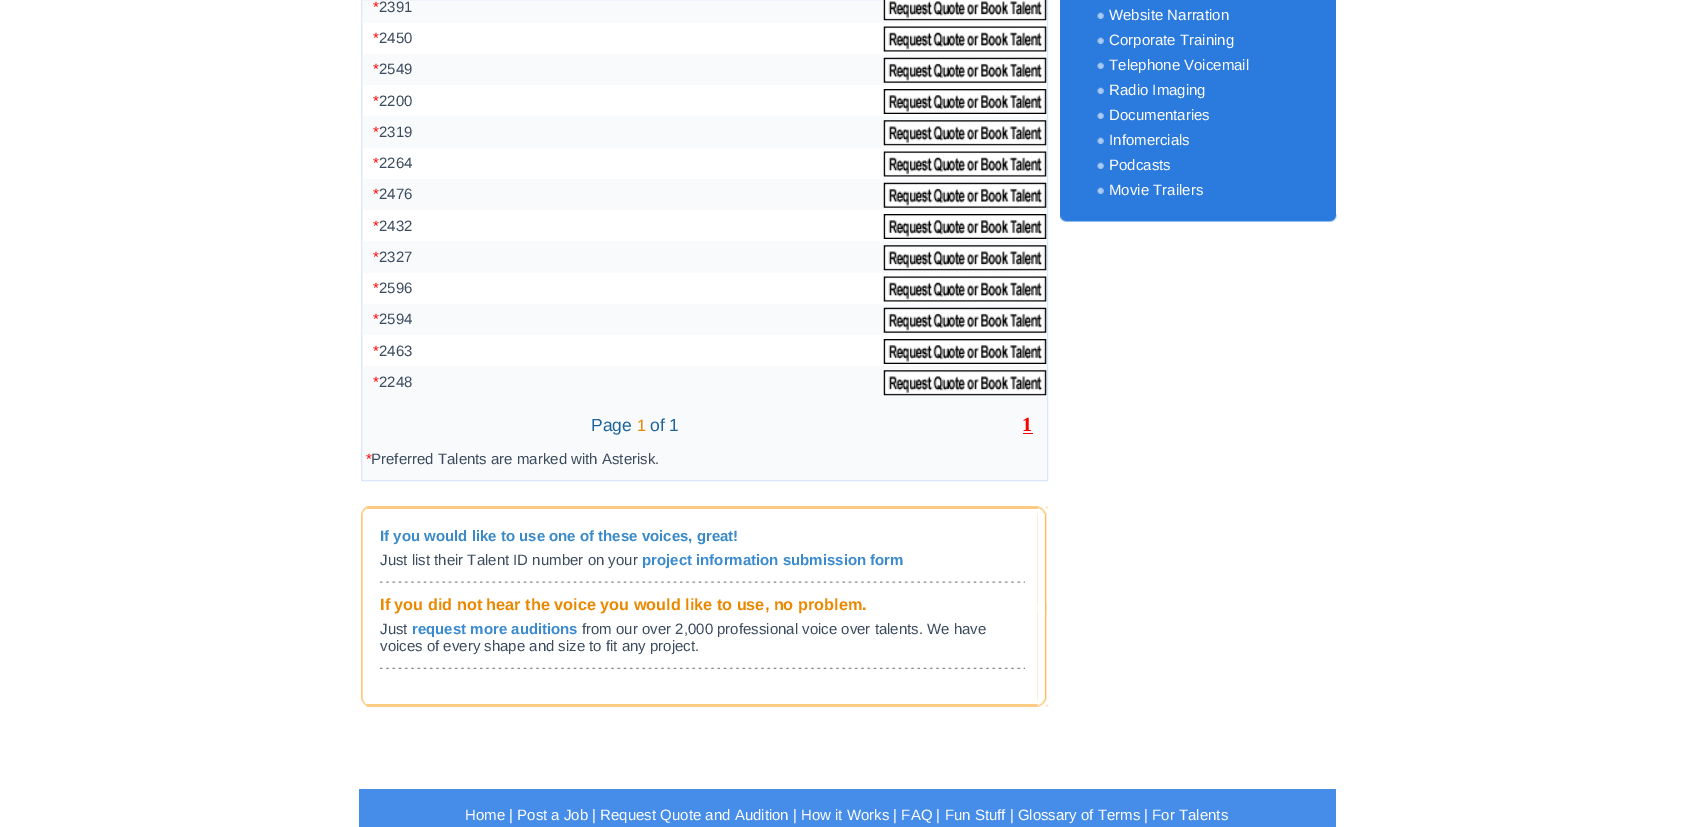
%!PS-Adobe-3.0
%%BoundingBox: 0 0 1693 827
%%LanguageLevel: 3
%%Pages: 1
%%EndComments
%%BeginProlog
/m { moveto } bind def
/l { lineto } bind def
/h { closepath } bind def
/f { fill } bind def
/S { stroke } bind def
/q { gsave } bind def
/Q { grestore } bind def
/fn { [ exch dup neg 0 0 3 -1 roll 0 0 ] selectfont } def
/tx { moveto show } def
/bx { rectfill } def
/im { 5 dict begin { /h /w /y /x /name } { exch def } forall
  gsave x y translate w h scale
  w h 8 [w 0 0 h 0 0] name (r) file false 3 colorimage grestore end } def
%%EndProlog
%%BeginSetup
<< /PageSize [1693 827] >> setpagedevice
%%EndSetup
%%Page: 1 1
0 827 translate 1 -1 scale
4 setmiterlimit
1 setgray
0 0 1693 827 bx
0.976 0.98 0.988 setrgbcolor
361.5 -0.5 m 1047.5 -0.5 l 1047.5 480.5 l 361.5 480.5 l h q f Q
0.859 0.902 0.988 setrgbcolor
S
/LiberationSans-Regular 15 fn
1 0 0 setrgbcolor
(*) 373 12 tx
0.235 0.298 0.369 setrgbcolor
(2391) 379 12 tx
(image0.raw) 883 0 164 21 im
1 setgray
363 23 683 31 bx
1 0 0 setrgbcolor
(*) 373 43 tx
0.235 0.298 0.369 setrgbcolor
(2450) 379 43 tx
(image1.raw) 883 26 164 26 im
1 0 0 setrgbcolor
(*) 373 74 tx
0.235 0.298 0.369 setrgbcolor
(2549) 379 74 tx
(image2.raw) 883 57 164 26 im
1 setgray
363 85 683 31 bx
1 0 0 setrgbcolor
(*) 373 106 tx
0.235 0.298 0.369 setrgbcolor
(2200) 379 106 tx
(image3.raw) 883 89 164 25 im
1 0 0 setrgbcolor
(*) 373 137 tx
0.235 0.298 0.369 setrgbcolor
(2319) 379 137 tx
(image4.raw) 883 120 164 26 im
1 setgray
363 148 683 31 bx
1 0 0 setrgbcolor
(*) 373 168 tx
0.235 0.298 0.369 setrgbcolor
(2264) 379 168 tx
(image1.raw) 883 151 164 26 im
1 0 0 setrgbcolor
(*) 373 199 tx
0.235 0.298 0.369 setrgbcolor
(2476) 379 199 tx
(image2.raw) 883 182 164 26 im
1 setgray
363 210 683 31 bx
1 0 0 setrgbcolor
(*) 373 231 tx
0.235 0.298 0.369 setrgbcolor
(2432) 379 231 tx
(image5.raw) 883 214 164 25 im
1 0 0 setrgbcolor
(*) 373 262 tx
0.235 0.298 0.369 setrgbcolor
(2327) 379 262 tx
(image4.raw) 883 245 164 26 im
1 setgray
363 273 683 31 bx
1 0 0 setrgbcolor
(*) 373 293 tx
0.235 0.298 0.369 setrgbcolor
(2596) 379 293 tx
(image1.raw) 883 276 164 26 im
1 0 0 setrgbcolor
(*) 373 324 tx
0.235 0.298 0.369 setrgbcolor
(2594) 379 324 tx
(image2.raw) 883 307 164 26 im
1 setgray
363 335 683 31 bx
1 0 0 setrgbcolor
(*) 373 356 tx
0.235 0.298 0.369 setrgbcolor
(2463) 379 356 tx
(image5.raw) 883 339 164 25 im
1 0 0 setrgbcolor
(*) 373 387 tx
0.235 0.298 0.369 setrgbcolor
(2248) 379 387 tx
(image4.raw) 883 370 164 26 im
/LiberationSans-Regular 17.5 fn
0.11 0.392 0.608 setrgbcolor
(Page) 591 431 tx
/LiberationSans-Regular 16.25 fn
0.918 0.533 0 setrgbcolor
(1) 637 431 tx
/LiberationSans-Regular 17.5 fn
0.11 0.392 0.608 setrgbcolor
(of 1) 650 431 tx
/LiberationSerif-Bold 20 fn
1 0 0 setrgbcolor
(1) 1022 431 tx
1023 433 10 1 bx
/LiberationSans-Regular 15 fn
(*) 366 464 tx
0.235 0.298 0.369 setrgbcolor
(Preferred Talents are marked with Asterisk.) 371 464 tx
(image6.raw) 361 506 7 10 im
0.988 0.792 0.502 setrgbcolor
367 506 671 3 bx
(image7.raw) 1037 506 11 10 im
(image8.raw) 361 515 2 184 im
1 setgray
1037 515 1 1 bx
/LiberationSans-Bold 15 fn
0.227 0.541 0.78 setrgbcolor
(If you would like to use one of these voices, great!) 380 541 tx
/LiberationSans-Regular 15 fn
0.235 0.298 0.369 setrgbcolor
(Just list their Talent ID number on your) 380 565 tx
/LiberationSans-Bold 15 fn
0.224 0.541 0.816 setrgbcolor
(project information submission form) 642 565 tx
(image9.raw) 380 581 645 2 im
/LiberationSans-Bold 16.25 fn
0.918 0.533 0 setrgbcolor
(If you did not hear the voice you would like to use, no problem.) 380 610 tx
/LiberationSans-Regular 15 fn
0.235 0.298 0.369 setrgbcolor
(Just) 380 634 tx
/LiberationSans-Bold 15 fn
0.224 0.541 0.816 setrgbcolor
(request more auditions) 412 634 tx
/LiberationSans-Regular 15 fn
0.235 0.298 0.369 setrgbcolor
(from our over 2,000 professional voice over talents. We have) 582 634 tx
(voices of every shape and size to fit any project.) 380 651 tx
(image10.raw) 380 667 645 2 im
(image11.raw) 1037 515 10 184 im
(image12.raw) 1037 604 10 8 im
(image13.raw) 361 699 7 8 im
0.988 0.796 0.518 setrgbcolor
367 704 671 3 bx
(image14.raw) 1037 699 11 8 im
0.169 0.478 0.871 setrgbcolor
1060 0 276 214 bx
(image15.raw) 1097 12 7 7 im
1 setgray
(Website Narration) 1109 20 tx
(image15.raw) 1097 37 7 7 im
(Corporate Training) 1109 45 tx
(image15.raw) 1097 62 7 7 im
(Telephone Voicemail) 1109 70 tx
(image15.raw) 1097 87 7 7 im
(Radio Imaging) 1109 95 tx
(image15.raw) 1097 112 7 7 im
(Documentaries) 1109 120 tx
(image15.raw) 1097 137 7 7 im
(Infomercials) 1109 145 tx
(image15.raw) 1097 162 7 7 im
(Podcasts) 1109 170 tx
(image15.raw) 1097 187 7 7 im
(Movie Trailers) 1109 195 tx
(image16.raw) 1060 214 277 8 im
0.271 0.553 0.91 setrgbcolor
359 789 977 38 bx
1 setgray
(Home | Post a Job | Request Quote and Audition | How it Works | FAQ | Fun Stuff | Glossary of Terms | For Talents) 465 820 tx
showpage
%%EOF
